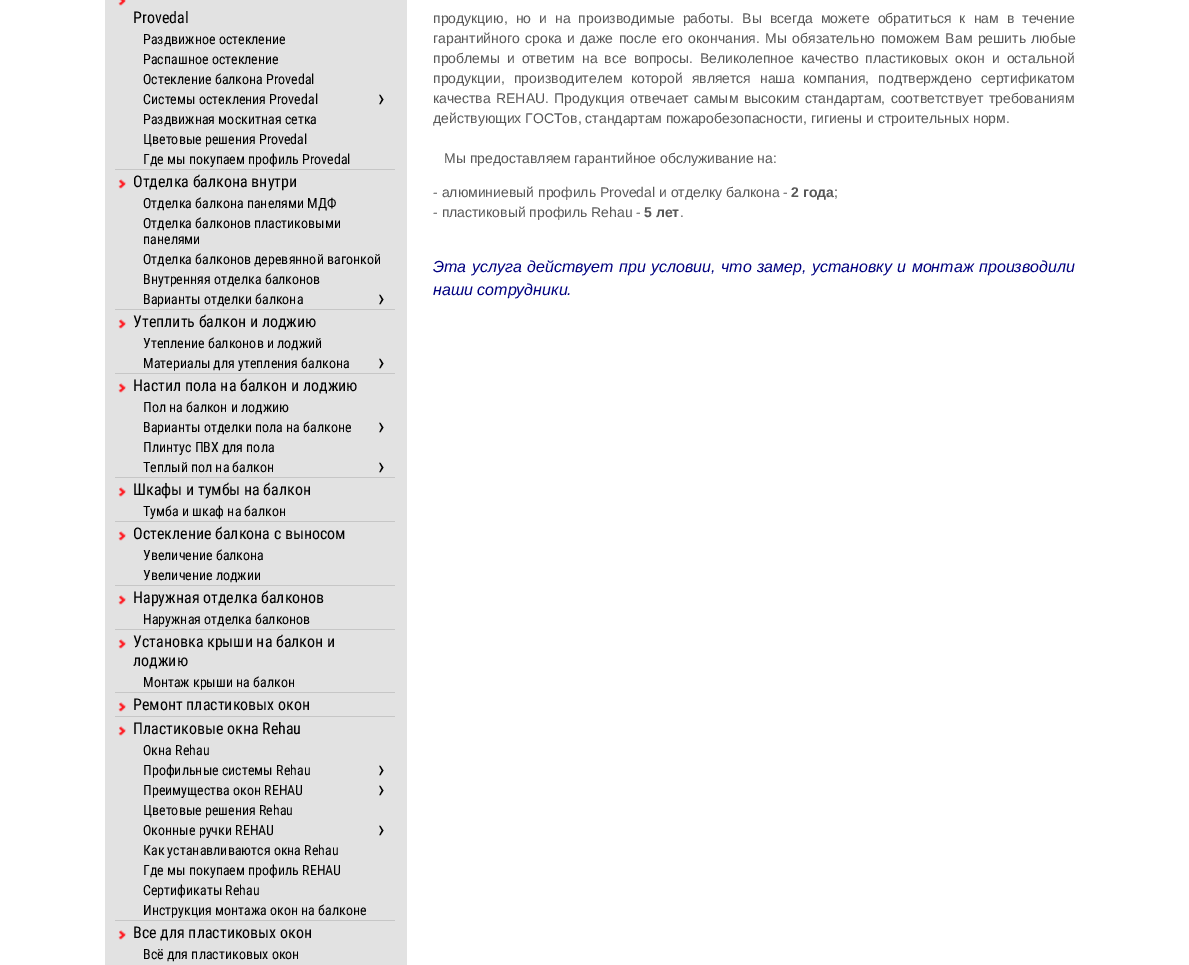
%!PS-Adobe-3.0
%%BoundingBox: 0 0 1189 965
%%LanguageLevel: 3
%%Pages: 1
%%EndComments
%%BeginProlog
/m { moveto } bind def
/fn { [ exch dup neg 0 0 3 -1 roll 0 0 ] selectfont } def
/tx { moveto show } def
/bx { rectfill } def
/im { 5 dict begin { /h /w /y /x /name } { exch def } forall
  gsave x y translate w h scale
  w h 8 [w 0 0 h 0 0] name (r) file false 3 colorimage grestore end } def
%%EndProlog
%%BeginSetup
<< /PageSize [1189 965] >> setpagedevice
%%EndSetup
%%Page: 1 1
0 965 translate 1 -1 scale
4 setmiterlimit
1 setgray
0 0 1189 965 bx
0.886 setgray
105 0 302 965 bx
0.776 setgray
115 169 280 1 bx
(image0.raw) 118 0 8 6 im
/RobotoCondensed-Regular 16 fn
0 setgray
(Provedal) 133 23 tx
/RobotoCondensed-Regular 14 fn
(Раздвижное остекление) 143 44 tx
(Распашное остекление) 143 64 tx
(Остекление балкона Provedal) 143 84 tx
(Системы остекления Provedal) 143 104 tx
/RobotoCondensed-Regular 24 fn
(›) 378 106 tx
/RobotoCondensed-Regular 14 fn
(Раздвижная москитная сетка) 143 124 tx
(Цветовые решения Provedal) 143 144 tx
(Где мы покупаем профиль Provedal) 143 164 tx
0.776 setgray
115 309 280 1 bx
(image1.raw) 118 179 8 10 im
/RobotoCondensed-Regular 16 fn
0 setgray
(Отделка балкона внутри) 133 187 tx
/RobotoCondensed-Regular 14 fn
(Отделка балкона панелями МДФ) 143 208 tx
(Отделка балконов пластиковыми) 143 228 tx
(панелями) 143 244 tx
(Отделка балконов деревянной вагонкой) 143 264 tx
(Внутренняя отделка балконов) 143 284 tx
(Варианты отделки балкона) 143 304 tx
/RobotoCondensed-Regular 24 fn
(›) 378 306 tx
0.776 setgray
115 373 280 1 bx
(image1.raw) 118 319 8 10 im
/RobotoCondensed-Regular 16 fn
0 setgray
(Утеплить балкон и лоджию) 133 327 tx
/RobotoCondensed-Regular 14 fn
(Утепление балконов и лоджий) 143 348 tx
(Материалы для утепления балкона) 143 368 tx
/RobotoCondensed-Regular 24 fn
(›) 378 370 tx
0.776 setgray
115 477 280 1 bx
(image1.raw) 118 383 8 10 im
/RobotoCondensed-Regular 16 fn
0 setgray
(Настил пола на балкон и лоджию) 133 391 tx
/RobotoCondensed-Regular 14 fn
(Пол на балкон и лоджию) 143 412 tx
(Варианты отделки пола на балконе) 143 432 tx
/RobotoCondensed-Regular 24 fn
(›) 378 434 tx
/RobotoCondensed-Regular 14 fn
(Плинтус ПВХ для пола) 143 452 tx
(Теплый пол на балкон) 143 472 tx
/RobotoCondensed-Regular 24 fn
(›) 378 474 tx
0.776 setgray
115 521 280 1 bx
(image1.raw) 118 487 8 10 im
/RobotoCondensed-Regular 16 fn
0 setgray
(Шкафы и тумбы на балкон) 133 495 tx
/RobotoCondensed-Regular 14 fn
(Тумба и шкаф на балкон) 143 516 tx
0.776 setgray
115 585 280 1 bx
(image1.raw) 118 531 8 10 im
/RobotoCondensed-Regular 16 fn
0 setgray
(Остекление балкона с выносом) 133 539 tx
/RobotoCondensed-Regular 14 fn
(Увеличение балкона) 143 560 tx
(Увеличение лоджии) 143 580 tx
0.776 setgray
115 629 280 1 bx
(image1.raw) 118 595 8 10 im
/RobotoCondensed-Regular 16 fn
0 setgray
(Наружная отделка балконов) 133 603 tx
/RobotoCondensed-Regular 14 fn
(Наружная отделка балконов) 143 624 tx
0.776 setgray
115 692 280 1 bx
(image1.raw) 118 639 8 10 im
/RobotoCondensed-Regular 16 fn
0 setgray
(Установка крыши на балкон и) 133 647 tx
(лоджию) 133 666 tx
/RobotoCondensed-Regular 14 fn
(Монтаж крыши на балкон) 143 687 tx
0.776 setgray
115 716 280 1 bx
(image1.raw) 118 702 8 10 im
/RobotoCondensed-Regular 16 fn
0 setgray
(Ремонт пластиковых окон) 133 710 tx
0.776 setgray
115 920 280 1 bx
(image1.raw) 118 726 8 10 im
0 setgray
(Пластиковые окна Rehau) 133 734 tx
/RobotoCondensed-Regular 14 fn
(Окна Rehau) 143 755 tx
(Профильные системы Rehau) 143 775 tx
/RobotoCondensed-Regular 24 fn
(›) 378 777 tx
/RobotoCondensed-Regular 14 fn
(Преимущества окон REHAU) 143 795 tx
/RobotoCondensed-Regular 24 fn
(›) 378 797 tx
/RobotoCondensed-Regular 14 fn
(Цветовые решения Rehau) 143 815 tx
(Оконные ручки REHAU) 143 835 tx
/RobotoCondensed-Regular 24 fn
(›) 378 837 tx
/RobotoCondensed-Regular 14 fn
(Как устанавливаются окна Rehau) 143 855 tx
(Где мы покупаем профиль REHAU) 143 875 tx
(Сертификаты Rehau) 143 895 tx
(Инструкция монтажа окон на балконе) 143 915 tx
(image1.raw) 118 930 8 10 im
/RobotoCondensed-Regular 16 fn
(Все для пластиковых окон) 133 938 tx
/RobotoCondensed-Regular 14 fn
(Всё для пластиковых окон) 143 959 tx
/LiberationSans-Regular 14 fn
0.345 setgray
433 23 m 4.1 0 32 (продукцию, но и на производимые работы. Вы всегда можете обратиться к нам в течение) widthshow
433 43 m 1.5 0 32 (гарантийного срока и даже после его окончания. Мы обязательно поможем Вам решить любые) widthshow
433 63 m 3.1 0 32 (проблемы и ответим на все вопросы. Великолепное качество пластиковых окон и остальной) widthshow
433 83 m 5 0 32 (продукции, производителем которой является наша компания, подтверждено сертификатом) widthshow
433 103 m 1.5 0 32 (качества REHAU. Продукция отвечает самым высоким стандартам, соответствует требованиям) widthshow
(действующих ГОСТов, стандартам пожаробезопасности, гигиены и строительных норм.) 433 123 tx
(Мы предоставляем гарантийное обслуживание на:) 444 163 tx
(- алюминиевый профиль Provedal и отделку балкона -) 433 197 tx
/LiberationSans-Bold 14 fn
(2 года) 791 197 tx
/LiberationSans-Regular 14 fn
(;) 834 197 tx
(- пластиковый профиль Rehau -) 433 217 tx
/LiberationSans-Bold 14 fn
(5 лет) 644 217 tx
/LiberationSans-Regular 14 fn
(.) 680 217 tx
/LiberationSans-Italic 16 fn
0 0 0.502 setrgbcolor
433 272 m 1 0 32 (Эта услуга действует при условии, что замер, установку и монтаж производили) widthshow
(наши сотрудники.) 433 295 tx
showpage
%%EOF
